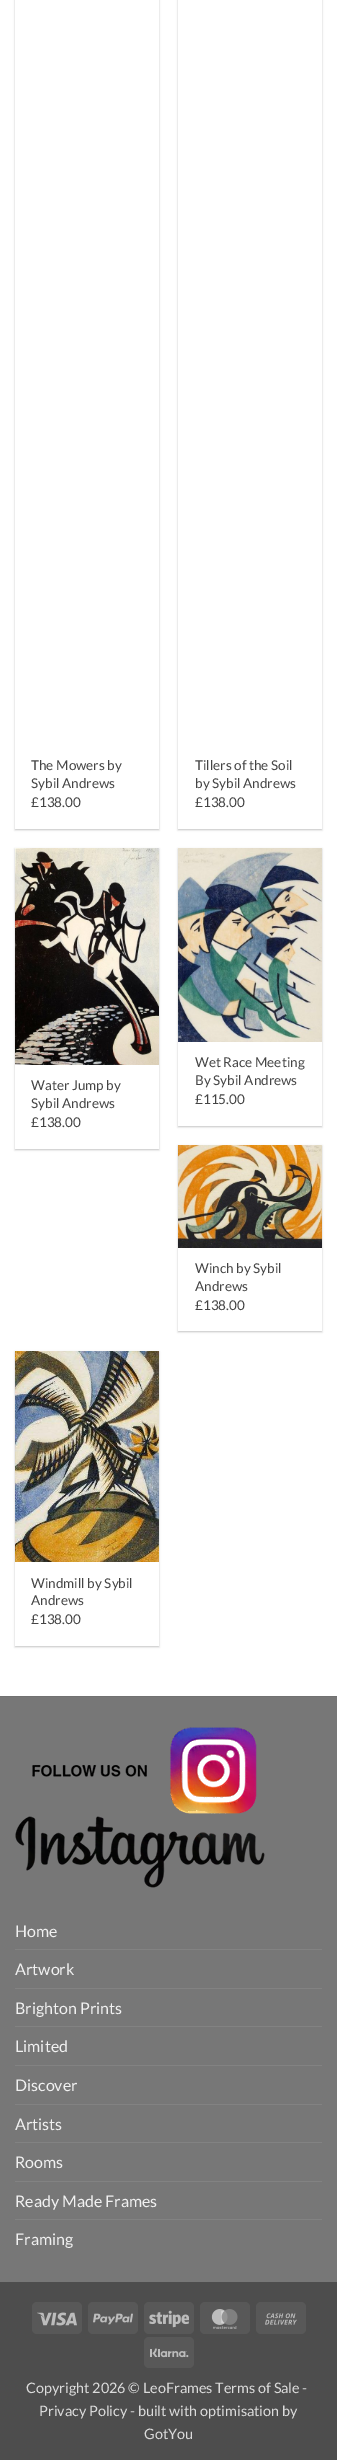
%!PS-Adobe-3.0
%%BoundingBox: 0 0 337 2460
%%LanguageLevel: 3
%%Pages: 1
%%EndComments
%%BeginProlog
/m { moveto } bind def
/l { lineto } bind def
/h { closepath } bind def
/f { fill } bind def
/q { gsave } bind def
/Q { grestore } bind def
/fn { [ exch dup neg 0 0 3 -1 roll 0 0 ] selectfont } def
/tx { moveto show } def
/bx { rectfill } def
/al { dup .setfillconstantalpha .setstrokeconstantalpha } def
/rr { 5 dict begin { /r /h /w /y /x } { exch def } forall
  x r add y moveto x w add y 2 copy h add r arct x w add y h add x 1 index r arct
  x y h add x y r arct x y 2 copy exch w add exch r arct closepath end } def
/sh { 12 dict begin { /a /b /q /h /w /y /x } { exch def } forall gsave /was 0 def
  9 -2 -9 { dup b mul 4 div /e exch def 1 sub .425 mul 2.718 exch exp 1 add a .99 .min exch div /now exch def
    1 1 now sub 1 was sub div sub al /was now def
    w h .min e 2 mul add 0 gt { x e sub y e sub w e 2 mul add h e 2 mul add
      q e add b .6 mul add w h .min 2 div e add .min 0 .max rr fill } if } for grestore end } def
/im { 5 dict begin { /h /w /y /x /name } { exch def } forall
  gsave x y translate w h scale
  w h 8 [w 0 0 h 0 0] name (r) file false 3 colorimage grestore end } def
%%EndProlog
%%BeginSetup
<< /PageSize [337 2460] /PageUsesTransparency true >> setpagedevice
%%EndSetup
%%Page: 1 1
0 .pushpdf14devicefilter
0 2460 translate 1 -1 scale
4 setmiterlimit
1 setgray
0 0 337 2460 bx
q
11 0 m 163 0 l 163 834 l 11 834 l h 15 -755 m 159 -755 l 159 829 l 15 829 l h eoclip newpath
0 setgray
15 -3 144 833 0 1 0.24 sh
Q
/Lato-Regular 13.5 fn
0.267 setgray
(The Mowers by) 31 770 tx
(Sybil Andrews) 31 788 tx
(£138.00) 31 807 tx
q
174 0 m 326 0 l 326 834 l 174 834 l h 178 -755 m 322 -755 l 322 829 l 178 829 l h eoclip newpath
0 setgray
178 -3 144 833 0 1 0.24 sh
Q
(Tillers of the Soil) 195 770 tx
(by Sybil Andrews) 195 788 tx
(£138.00) 195 807 tx
q
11 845 m 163 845 l 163 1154 l 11 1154 l h 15 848 m 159 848 l 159 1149 l 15 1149 l h eoclip newpath
0 setgray
15 849 144 301 0 1 0.24 sh
Q
(image0.raw) 15 848 144 217 im
(Water Jump by) 31 1090 tx
(Sybil Andrews) 31 1108 tx
(£138.00) 31 1127 tx
q
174 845 m 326 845 l 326 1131 l 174 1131 l h 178 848 m 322 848 l 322 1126 l 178 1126 l h eoclip newpath
0 setgray
178 849 144 278 0 1 0.24 sh
Q
(image1.raw) 178 848 144 194 im
(Wet Race Meeting) 195 1067 tx
(By Sybil Andrews) 195 1085 tx
(£115.00) 195 1104 tx
q
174 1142 m 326 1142 l 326 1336 l 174 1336 l h 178 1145 m 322 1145 l 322 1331 l 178 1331 l h eoclip newpath
0 setgray
178 1146 144 186 0 1 0.24 sh
Q
(image2.raw) 178 1145 144 103 im
(Winch by Sybil) 195 1273 tx
(Andrews) 195 1291 tx
(£138.00) 195 1310 tx
q
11 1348 m 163 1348 l 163 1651 l 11 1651 l h 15 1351 m 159 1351 l 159 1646 l 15 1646 l h eoclip newpath
0 setgray
15 1352 144 295 0 1 0.24 sh
Q
(image3.raw) 15 1351 144 211 im
(Windmill by Sybil) 31 1588 tx
(Andrews) 31 1605 tx
(£138.00) 31 1624 tx
0.467 setgray
0 1697 337 585 bx
0.443 setgray
0 1696 337 1 bx
(image4.raw) 15 1727 250 161 im
/Lato-Regular 16 fn
0.945 setgray
(Home) 15 1937 tx
0.51 setgray
15 1949 307 1 bx
0.945 setgray
(Artwork) 15 1975 tx
0.51 setgray
15 1988 307 1 bx
0.945 setgray
(Brighton Prints) 15 2014 tx
0.51 setgray
15 2026 307 1 bx
0.945 setgray
(Limited) 15 2052 tx
0.51 setgray
15 2065 307 1 bx
0.945 setgray
(Discover) 15 2091 tx
0.51 setgray
15 2104 307 1 bx
0.945 setgray
(Artists) 15 2130 tx
0.51 setgray
15 2142 307 1 bx
0.945 setgray
(Rooms) 15 2168 tx
0.51 setgray
15 2181 307 1 bx
0.945 setgray
(Ready Made Frames) 15 2207 tx
0.51 setgray
15 2219 307 1 bx
0.945 setgray
(Framing) 15 2245 tx
0.302 setgray
0 2282 337 178 bx
0.345 setgray
32 2302 50 32 5 rr f
(image5.raw) 37 2312 40 14 im
88 2302 50 32 5 rr f
(image6.raw) 93 2313 40 12 im
144 2302 50 32 5 rr f
(image7.raw) 149 2310 40 18 im
200 2302 50 32 5 rr f
(image8.raw) 211 2309 27 20 im
256 2302 50 32 5 rr f
(image9.raw) 265 2313 32 12 im
144 2337 50 31 5 rr f
(image10.raw) 150 2348 39 10 im
/Lato-Regular 14.4 fn
0.859 setgray
(Copyright 2026 © LeoFrames Terms of Sale -) 26 2393 tx
(Privacy Policy - built with optimisation by) 39 2416 tx
(GotYou) 144 2439 tx
.poppdf14devicefilter showpage
%%EOF
